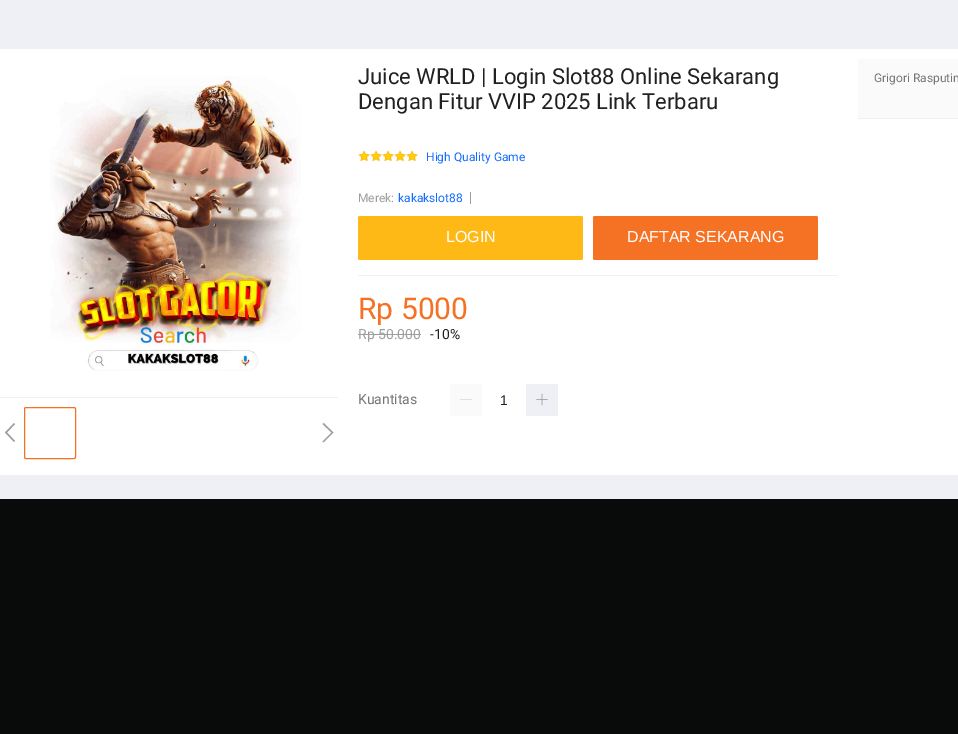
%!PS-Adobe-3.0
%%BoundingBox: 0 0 958 734
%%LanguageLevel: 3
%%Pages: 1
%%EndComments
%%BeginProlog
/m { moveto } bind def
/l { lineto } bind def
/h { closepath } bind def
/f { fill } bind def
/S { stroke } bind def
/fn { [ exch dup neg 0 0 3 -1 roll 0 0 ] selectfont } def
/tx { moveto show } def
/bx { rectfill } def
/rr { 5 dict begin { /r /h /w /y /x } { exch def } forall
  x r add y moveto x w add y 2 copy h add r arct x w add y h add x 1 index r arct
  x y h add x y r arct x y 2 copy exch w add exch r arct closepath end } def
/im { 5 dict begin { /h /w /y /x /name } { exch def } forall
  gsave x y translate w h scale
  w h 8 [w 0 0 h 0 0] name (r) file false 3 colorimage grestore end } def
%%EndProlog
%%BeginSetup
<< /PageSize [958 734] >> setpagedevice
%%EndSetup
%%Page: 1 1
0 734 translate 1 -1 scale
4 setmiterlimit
0.035 0.039 0.039 setrgbcolor
0 0 958 734 bx
0.937 0.941 0.961 setrgbcolor
0 0 958 49 bx
0 475 958 24 bx
1 setgray
0 49 958 426 bx
0.937 0.941 0.961 setrgbcolor
0 397 338 1 bx
(image0.raw) 50 76 251 295 im
0.62 setgray
15 441 m 7 432.5 l 15 424 l 14 423 l 5 432.5 l 14 442 l h f
0.961 0.447 0.141 setrgbcolor
24.5 407.5 51 51 1.5 rr S
0.62 setgray
323.5 442.5 m 322.5 441.5 l 331.5 432.5 l 322.5 424 l 323.5 423 l 333.5 432.5 l h f
/Roboto-Regular 22 fn
0.129 setgray
(Juice WRLD | Login Slot88 Online Sekarang) 358 84 tx
(Dengan Fitur VVIP 2025 Link Terbaru) 358 109 tx
(image1.raw) 358 150 12 12 im
(image1.raw) 370 150 12 12 im
(image1.raw) 382 150 12 12 im
(image1.raw) 394 150 12 12 im
(image1.raw) 406 150 12 12 im
/Roboto-Regular 12 fn
0.075 0.424 1 setrgbcolor
(High Quality Game) 426 161 tx
0.937 0.941 0.961 setrgbcolor
358 275 480 1 bx
0.62 setgray
(Merek:) 358 202 tx
0.075 0.424 1 setrgbcolor
(kakakslot88) 398 202 tx
0.62 setgray
470 192 1 12 bx
1 0.725 0.086 setrgbcolor
358 216 225 44 2 rr f
/LiberationSans-Regular 16 fn
1 setgray
(LOGIN) 446 242 tx
0.961 0.447 0.141 setrgbcolor
593 216 225 44 2 rr f
1 setgray
(DAFTAR SEKARANG) 627 242 tx
/Roboto-Regular 30 fn
0.961 0.447 0.141 setrgbcolor
(Rp 5000) 358 319 tx
/Roboto-Regular 14 fn
0.62 setgray
(Rp 50.000) 358 339 tx
358 334 63 1 bx
0.129 setgray
(-10%) 430 339 tx
0.459 setgray
(Kuantitas) 358 404 tx
0.98 setgray
450 384 32 32 bx
(image2.raw) 460 399 12 1 im
0.937 0.941 0.961 setrgbcolor
526 384 32 32 bx
(image3.raw) 536 393 12 13 im
/LiberationSans-Regular 14 fn
0.129 setgray
(1) 500 405 tx
0.98 setgray
858 59 100 59 bx
/Roboto-Regular 12 fn
0.459 setgray
(Grigori Rasputin) 874 82 tx
0.937 0.941 0.961 setrgbcolor
858 118 100 1 bx
showpage
%%EOF
